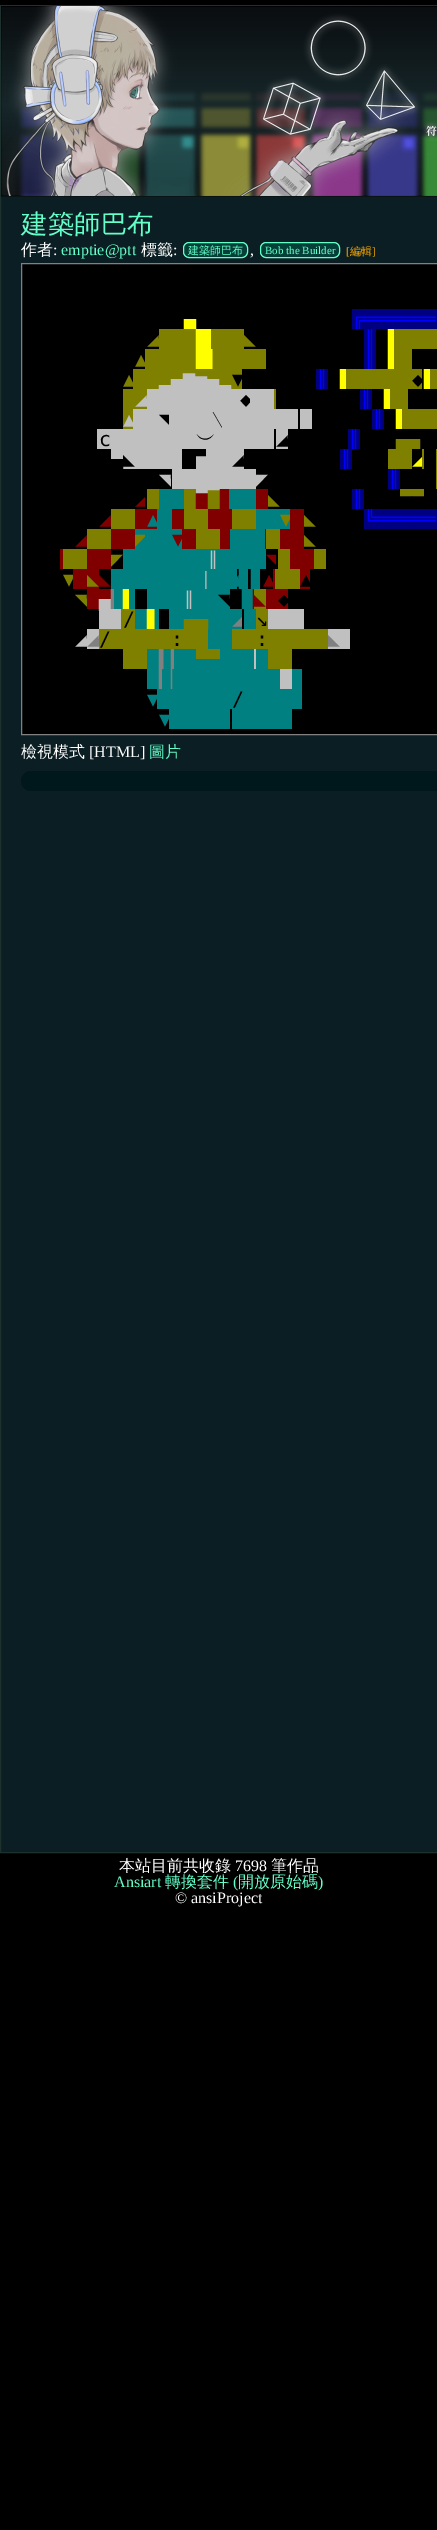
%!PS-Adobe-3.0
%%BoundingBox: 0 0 437 2530
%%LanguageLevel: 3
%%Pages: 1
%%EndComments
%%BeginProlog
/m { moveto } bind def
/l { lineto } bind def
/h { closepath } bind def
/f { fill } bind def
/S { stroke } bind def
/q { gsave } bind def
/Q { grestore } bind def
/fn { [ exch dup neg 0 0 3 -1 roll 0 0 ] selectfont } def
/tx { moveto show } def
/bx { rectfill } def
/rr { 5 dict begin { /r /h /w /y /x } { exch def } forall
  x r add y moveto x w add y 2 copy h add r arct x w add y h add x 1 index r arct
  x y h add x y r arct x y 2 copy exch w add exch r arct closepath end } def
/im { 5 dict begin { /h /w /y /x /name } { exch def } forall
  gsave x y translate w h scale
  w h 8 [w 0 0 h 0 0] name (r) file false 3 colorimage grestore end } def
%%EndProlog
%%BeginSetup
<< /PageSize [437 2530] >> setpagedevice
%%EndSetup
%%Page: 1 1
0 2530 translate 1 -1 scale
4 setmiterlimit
0 setgray
0 0 437 2530 bx
0.039 0.118 0.137 setrgbcolor
1 197 436 1655 bx
0.118 0.196 0.176 setrgbcolor
0.5 5.5 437 1847 rectstroke
0.039 0.078 0.078 setrgbcolor
1 196 436 1 bx
(image0.raw) 1 6 436 190 im
/WenQuanYiZenHei-Medium 26.5 fn
0.392 1 0.784 setrgbcolor
(建築師巴布) 21 233 tx
/WenQuanYiZenHei-Medium 16 fn
1 setgray
(作者) 21 255 tx
/LiberationSerif-Regular 16 fn
(:) 53 255 tx
0.392 1 0.784 setrgbcolor
(emptie@ptt) 61 255 tx
/WenQuanYiZenHei-Medium 16 fn
1 setgray
(標籤) 141 255 tx
/LiberationSerif-Regular 16 fn
(:) 173 255 tx
0.016 0.251 0.22 setrgbcolor
183.5 242.5 64 15 5.5 rr q f Q
0.392 1 0.784 setrgbcolor
S
/WenQuanYiZenHei-Medium 11 fn
(建築師巴布) 188 254 tx
0.016 0.251 0.22 setrgbcolor
260.5 242.5 79 15 5.5 rr q f Q
0.392 1 0.784 setrgbcolor
S
/LiberationSerif-Regular 11 fn
(Bob the Builder) 265 254 tx
/LiberationSerif-Regular 16 fn
1 setgray
(,) 250 255 tx
/LiberationSerif-Regular 11 fn
1 0.667 0 setrgbcolor
([) 346 255 tx
/WenQuanYiZenHei-Medium 11 fn
(編輯) 350 255 tx
/LiberationSerif-Regular 11 fn
(]) 372 255 tx
0 setgray
21.5 263.5 m 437.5 263.5 l 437.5 734.5 l 21.5 734.5 l h q f Q
0.502 setgray
S
/DejaVuSansMono-Regular 20 fn
1 1 0 setrgbcolor
(▄) 184 326 tx
0 0 0.502 setrgbcolor
352 309 85 20 bx
q
27 309 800 20 rectclip
0 0 1 setrgbcolor
(╔══════) 352 326 tx
Q
0.502 0.502 0 setrgbcolor
(◢) 147 346 tx
159 329 85 20 bx
q
27 329 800 20 rectclip
1 1 0 setrgbcolor
(█▎) 196 346 tx
Q
(◣) 244 346 tx
0 0 0.502 setrgbcolor
364 329 12 40 bx
q
27 329 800 20 rectclip
0 0 1 setrgbcolor
(║) 364 346 tx
Q
0.502 0.502 0 setrgbcolor
388 329 49 20 bx
q
27 329 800 20 rectclip
1 1 0 setrgbcolor
(▌) 388 346 tx
Q
145 349 121 20 bx
q
135 349 10 20 rectclip
(▲) 135 366 tx
Q
q
27 349 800 20 rectclip
1 1 0 setrgbcolor
(█▍) 196 366 tx
0 0 1 setrgbcolor
(║) 364 366 tx
Q
388 349 24 20 bx
q
27 349 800 20 rectclip
1 1 0 setrgbcolor
(▌) 388 366 tx
Q
133 369 109 20 bx
q
123 369 10 20 rectclip
(▲) 123 386 tx
Q
0.753 setgray
(▂▄▆▅▄▂) 159 386 tx
q
232 369 10 20 rectclip
0 setgray
(▼) 232 386 tx
Q
0 0 0.502 setrgbcolor
316 369 12 20 bx
q
27 369 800 20 rectclip
0 0 1 setrgbcolor
(║) 316 386 tx
Q
0.502 0.502 0 setrgbcolor
340 369 82 20 bx
q
27 369 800 20 rectclip
1 1 0 setrgbcolor
(▌) 340 386 tx
Q
q
412 369 10 20 rectclip
0 setgray
(◆) 412 386 tx
Q
424 369 13 20 bx
q
27 369 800 20 rectclip
1 1 0 setrgbcolor
(▌) 424 386 tx
Q
123 389 24 20 bx
0.753 setgray
(◢) 135 406 tx
147 389 49 20 bx
206 389 34 20 bx
196 391 10 18 bx
240 389 34 20 bx
q
240 389 10 20 rectclip
0 setgray
(◆) 240 406 tx
Q
0.502 0.502 0 setrgbcolor
274 389 2 20 bx
0 0 0.502 setrgbcolor
360 389 12 20 bx
q
27 389 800 20 rectclip
0 0 1 setrgbcolor
(║) 360 406 tx
Q
0.502 0.502 0 setrgbcolor
384 389 24 20 bx
q
27 389 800 20 rectclip
1 1 0 setrgbcolor
(▌) 384 406 tx
Q
0.753 setgray
133 409 165 20 bx
0.502 0.502 0 setrgbcolor
123 409 10 20 bx
q
123 409 10 20 rectclip
0.753 setgray
(▲) 123 426 tx
Q
q
159 409 10 20 rectclip
0 setgray
(◥) 159 426 tx
Q
/WenQuanYiZenHei-Medium 20 fn
0 setgray
(﹨) 208 426 tx
0.753 setgray
300 409 12 20 bx
0 0 0.502 setrgbcolor
372 409 12 20 bx
q
27 409 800 20 rectclip
/DejaVuSansMono-Regular 20 fn
0 0 1 setrgbcolor
(║) 372 426 tx
Q
0.502 0.502 0 setrgbcolor
396 409 41 20 bx
q
27 409 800 20 rectclip
/DejaVuSansMono-Regular 20 fn
1 1 0 setrgbcolor
(▌) 396 426 tx
Q
0.753 setgray
97 429 75 20 bx
/DejaVuSansMono-Regular 20 fn
0 setgray
(c) 99 446 tx
0.753 setgray
172 429 102 20 bx
/WenQuanYiZenHei-Medium 20 fn
0 setgray
(︶) 196 446 tx
0.753 setgray
276 429 12 20 bx
/DejaVuSansMono-Regular 20 fn
0 setgray
(◢) 276 446 tx
0 0 0.502 setrgbcolor
348 429 12 20 bx
q
27 429 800 20 rectclip
0 0 1 setrgbcolor
(║) 348 446 tx
Q
0.502 0.502 0 setrgbcolor
(▄▄) 396 446 tx
0.753 setgray
111 449 71 20 bx
q
27 449 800 20 rectclip
0 setgray
(▄◣) 111 466 tx
Q
206 449 38 20 bx
q
196 449 10 20 rectclip
(▅) 196 466 tx
Q
0 setgray
(◢) 232 466 tx
0 0 0.502 setrgbcolor
340 449 12 20 bx
q
27 449 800 20 rectclip
0 0 1 setrgbcolor
(║) 340 466 tx
Q
0.502 0.502 0 setrgbcolor
388 449 24 20 bx
422 449 2 20 bx
0 setgray
412 449 9 2 bx
q
412 449 10 20 rectclip
1 1 0 setrgbcolor
(◢) 412 466 tx
Q
0.502 0.502 0 setrgbcolor
436 449 1 40 bx
0.753 setgray
(◥) 159 486 tx
172 469 84 20 bx
(◤) 256 486 tx
0 0 0.502 setrgbcolor
388 469 12 20 bx
q
27 469 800 20 rectclip
0 0 1 setrgbcolor
(║) 388 486 tx
Q
q
135 489 10 20 rectclip
0.502 0 0 setrgbcolor
(◢) 135 506 tx
Q
0.502 0.502 0 setrgbcolor
147 489 12 20 bx
0 0.502 0.502 setrgbcolor
159 489 25 20 bx
0.502 0.502 0 setrgbcolor
184 489 12 20 bx
0.753 setgray
196 489 24 20 bx
0.502 0 0 setrgbcolor
(▆) 196 506 tx
0.502 0.502 0 setrgbcolor
(▇) 208 506 tx
0 0.502 0.502 setrgbcolor
220 489 36 20 bx
q
27 489 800 20 rectclip
0.502 0 0 setrgbcolor
(▊) 220 506 tx
Q
0.502 0 0 setrgbcolor
256 489 12 20 bx
0.502 0.502 0 setrgbcolor
(◣) 268 506 tx
0 0 0.502 setrgbcolor
352 489 12 20 bx
q
27 489 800 20 rectclip
0 0 1 setrgbcolor
(║) 352 506 tx
Q
0.502 0.502 0 setrgbcolor
400 489 24 20 bx
0 setgray
(▅▅) 400 506 tx
0.502 0 0 setrgbcolor
(◢) 99 526 tx
0.502 0.502 0 setrgbcolor
111 509 24 20 bx
0.502 0 0 setrgbcolor
135 509 22 20 bx
172 509 12 20 bx
0.502 0.502 0 setrgbcolor
184 509 24 20 bx
0.502 0 0 setrgbcolor
208 509 24 20 bx
0.502 0.502 0 setrgbcolor
232 509 24 20 bx
0 0.502 0.502 setrgbcolor
256 509 34 20 bx
0 0 0.502 setrgbcolor
364 509 73 20 bx
q
27 509 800 20 rectclip
0 0 1 setrgbcolor
(╚═════) 364 526 tx
Q
0 0.502 0.502 setrgbcolor
157 509 15 20 bx
q
147 509 10 20 rectclip
(▲) 147 526 tx
Q
0.502 0 0 setrgbcolor
290 509 14 20 bx
q
280 509 10 20 rectclip
0.502 0.502 0 setrgbcolor
(▼) 280 526 tx
Q
0.502 0.502 0 setrgbcolor
(◣) 304 526 tx
0.502 0 0 setrgbcolor
(◢) 75 546 tx
0.502 0.502 0 setrgbcolor
87 529 24 20 bx
0.502 0 0 setrgbcolor
111 529 24 20 bx
0 0.502 0.502 setrgbcolor
135 529 47 20 bx
q
135 529 10 20 rectclip
0.502 0.502 0 setrgbcolor
(◤) 135 546 tx
Q
0.502 0 0 setrgbcolor
182 529 14 20 bx
q
172 529 10 20 rectclip
(▼) 172 546 tx
Q
0.502 0.502 0 setrgbcolor
196 529 24 20 bx
0 0.502 0.502 setrgbcolor
230 529 26 20 bx
0.502 0 0 setrgbcolor
220 529 10 20 bx
0.502 0.502 0 setrgbcolor
266 529 14 20 bx
0.502 0 0 setrgbcolor
256 529 10 20 bx
q
256 529 10 20 rectclip
0 0.502 0.502 setrgbcolor
(▊) 256 546 tx
Q
280 529 24 20 bx
0.502 0.502 0 setrgbcolor
(◣) 304 546 tx
0.502 0 0 setrgbcolor
51 549 12 20 bx
q
27 549 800 20 rectclip
0 setgray
(▊) 51 566 tx
Q
0.502 0.502 0 setrgbcolor
63 549 24 20 bx
0.502 0 0 setrgbcolor
87 549 24 20 bx
0.502 0.502 0 setrgbcolor
(◤) 111 566 tx
0 0.502 0.502 setrgbcolor
123 549 107 20 bx
/DejaVuSans-Regular 20 fn
0.753 setgray
(∥) 208 566 tx
0 0.502 0.502 setrgbcolor
230 549 36 20 bx
q
266 549 10 20 rectclip
/DejaVuSansMono-Regular 20 fn
0.502 0 0 setrgbcolor
(◥) 266 566 tx
Q
0.502 0.502 0 setrgbcolor
278 549 12 20 bx
0.502 0 0 setrgbcolor
290 549 24 20 bx
0.502 0.502 0 setrgbcolor
314 549 12 20 bx
0.502 0 0 setrgbcolor
73 569 26 20 bx
q
63 569 10 20 rectclip
/DejaVuSansMono-Regular 20 fn
0.502 0.502 0 setrgbcolor
(▼) 63 586 tx
Q
/DejaVuSansMono-Regular 20 fn
0.502 0.502 0 setrgbcolor
(◣) 87 586 tx
0.502 0 0 setrgbcolor
(◣) 99 586 tx
0 0.502 0.502 setrgbcolor
111 569 116 20 bx
/WenQuanYiZenHei-Medium 20 fn
0.753 setgray
(｜) 196 586 tx
q
27 569 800 20 rectclip
/DejaVuSansMono-Regular 20 fn
0 0.502 0.502 setrgbcolor
(◢▊▊) 227 586 tx
Q
0 0.502 0.502 setrgbcolor
227 569 10 20 bx
0.502 0 0 setrgbcolor
273 569 2 20 bx
q
263 569 10 20 rectclip
/DejaVuSansMono-Regular 20 fn
(▲) 263 586 tx
Q
0.502 0.502 0 setrgbcolor
275 569 25 20 bx
0.502 0 0 setrgbcolor
300 569 10 20 bx
q
300 569 10 20 rectclip
/DejaVuSansMono-Regular 20 fn
0 setgray
(▲) 300 586 tx
Q
/DejaVuSansMono-Regular 20 fn
0.502 0.502 0 setrgbcolor
(◥) 75 606 tx
0.502 0 0 setrgbcolor
87 589 24 20 bx
0.753 setgray
(▄) 99 606 tx
0 0.502 0.502 setrgbcolor
111 589 24 20 bx
q
27 589 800 20 rectclip
0.502 setgray
(▎) 111 606 tx
1 1 0 setrgbcolor
(▌) 123 606 tx
Q
147 589 83 20 bx
/DejaVuSans-Regular 20 fn
0.753 setgray
(∥) 184 606 tx
/DejaVuSansMono-Regular 20 fn
0 setgray
(◥) 218 606 tx
0.502 0 0 setrgbcolor
242 589 12 20 bx
q
27 589 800 20 rectclip
0 0.502 0.502 setrgbcolor
(▉) 242 606 tx
Q
0.502 0.502 0 setrgbcolor
254 589 12 20 bx
0.502 0 0 setrgbcolor
(◣) 254 606 tx
266 589 22 20 bx
q
278 589 10 20 rectclip
0 setgray
(◆) 278 606 tx
Q
0.753 setgray
99 609 22 20 bx
0.502 0.502 0 setrgbcolor
121 609 14 20 bx
0 0.502 0.502 setrgbcolor
135 609 24 20 bx
q
27 609 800 20 rectclip
1 1 0 setrgbcolor
(▋) 147 626 tx
Q
169 609 73 20 bx
244 609 12 20 bx
0.753 setgray
268 609 36 20 bx
0 setgray
(/) 123 626 tx
0.502 0.502 0 setrgbcolor
(▄▄) 184 626 tx
q
232 609 10 20 rectclip
0.502 setgray
(◢) 232 626 tx
Q
256 609 12 20 bx
0 setgray
(↘) 256 626 tx
0.753 setgray
(◢) 75 646 tx
87 629 12 20 bx
0.502 setgray
(◢) 87 646 tx
0.502 0.502 0 setrgbcolor
99 629 109 20 bx
0 setgray
(/     :) 99 646 tx
0 0.502 0.502 setrgbcolor
208 629 24 20 bx
0.502 0.502 0 setrgbcolor
232 629 96 20 bx
0 setgray
(:) 256 646 tx
0.753 setgray
328 629 22 20 bx
0.502 setgray
(◣) 328 646 tx
0.502 0.502 0 setrgbcolor
123 649 24 20 bx
0 0.502 0.502 setrgbcolor
147 649 49 20 bx
q
27 649 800 20 rectclip
0.502 setgray
(▍▎) 159 666 tx
Q
0.502 0.502 0 setrgbcolor
196 649 24 20 bx
0 0.502 0.502 setrgbcolor
(▄▄) 196 666 tx
220 649 34 20 bx
0.753 setgray
254 649 2 20 bx
0 0.502 0.502 setrgbcolor
256 649 12 20 bx
0.502 0.502 0 setrgbcolor
268 649 24 20 bx
0 0.502 0.502 setrgbcolor
147 669 133 20 bx
q
27 669 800 20 rectclip
0.502 setgray
(▎▏) 159 686 tx
Q
0.753 setgray
280 669 12 20 bx
0 0.502 0.502 setrgbcolor
292 669 10 20 bx
157 689 145 20 bx
q
147 689 10 20 rectclip
(▼) 147 706 tx
Q
0 setgray
(/) 232 706 tx
0 0.502 0.502 setrgbcolor
169 709 61 20 bx
q
159 709 10 20 rectclip
(▼) 159 726 tx
Q
232 709 60 20 bx
/WenQuanYiZenHei-Medium 16 fn
1 setgray
(檢視模式) 21 757 tx
/LiberationSerif-Regular 16 fn
([HTML]) 89 757 tx
/WenQuanYiZenHei-Medium 16 fn
0.392 1 0.784 setrgbcolor
(圖片) 149 757 tx
0 0.094 0.11 setrgbcolor
21 771 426 20 10 rr f
1 setgray
(本站目前共收錄) 119 1871 tx
/LiberationSerif-Regular 16 fn
(7698) 235 1871 tx
/WenQuanYiZenHei-Medium 16 fn
(筆作品) 271 1871 tx
/LiberationSerif-Regular 16 fn
0.392 1 0.784 setrgbcolor
(Ansiart) 114 1887 tx
/WenQuanYiZenHei-Medium 16 fn
(轉換套件) 165 1887 tx
/LiberationSerif-Regular 16 fn
(\() 233 1887 tx
/WenQuanYiZenHei-Medium 16 fn
(開放原始碼) 238 1887 tx
/LiberationSerif-Regular 16 fn
(\)) 318 1887 tx
1 setgray
(© ansiProject) 175 1903 tx
showpage
%%EOF
